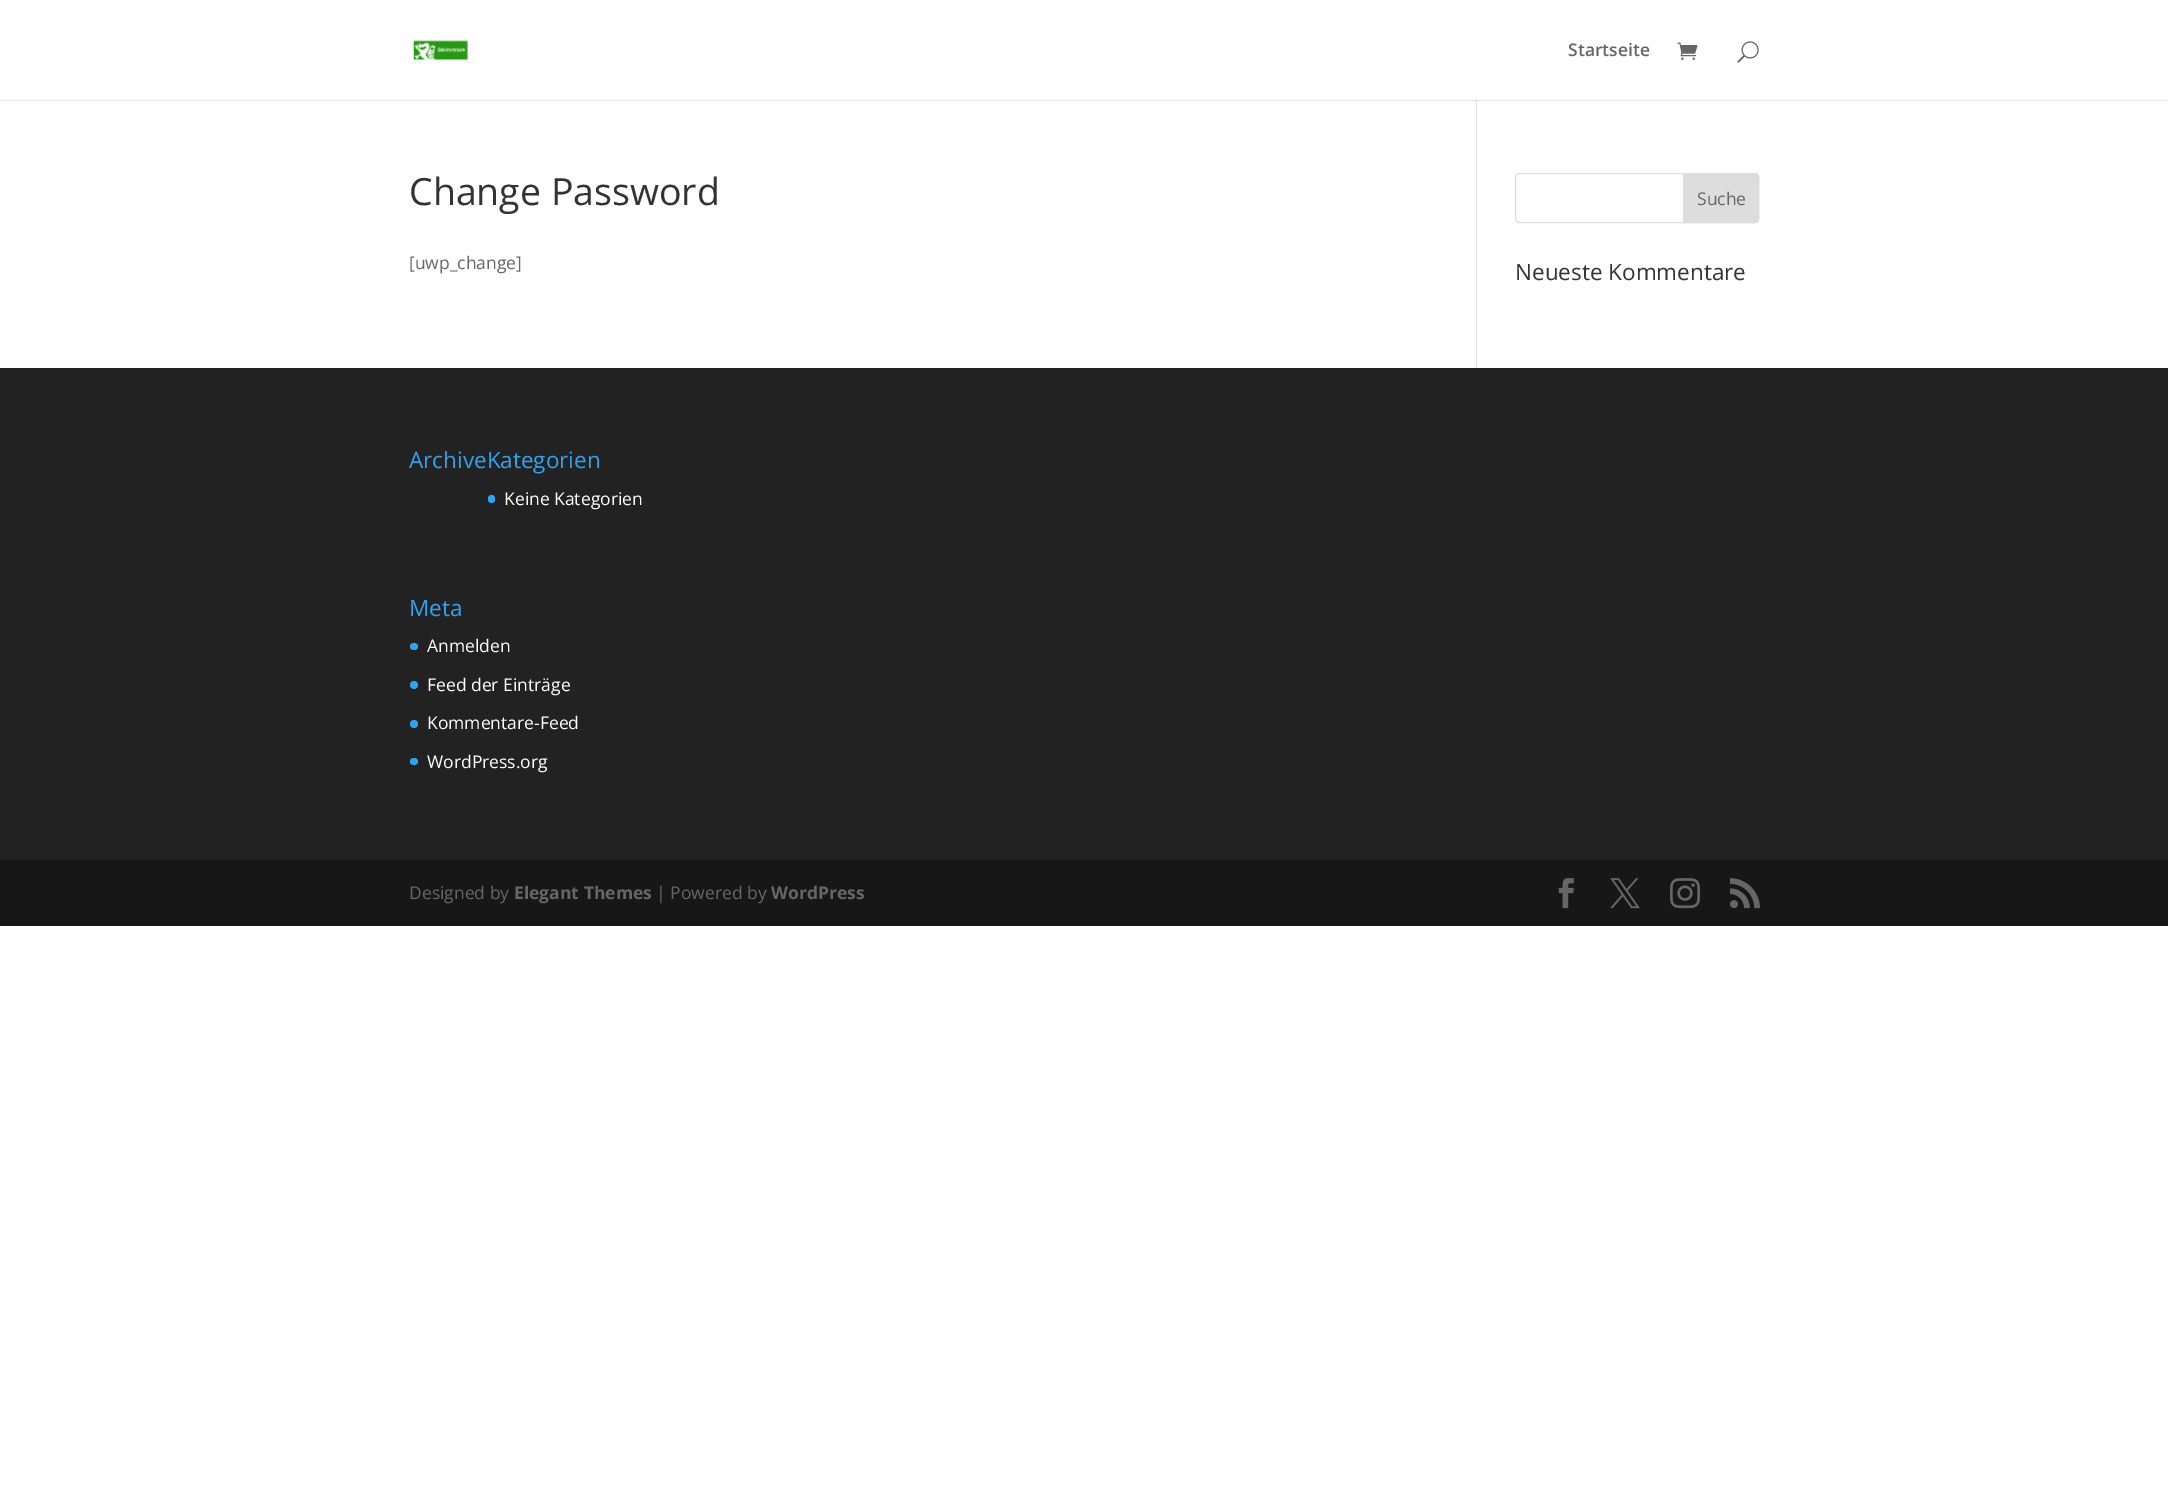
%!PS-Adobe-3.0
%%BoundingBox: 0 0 2168 1489
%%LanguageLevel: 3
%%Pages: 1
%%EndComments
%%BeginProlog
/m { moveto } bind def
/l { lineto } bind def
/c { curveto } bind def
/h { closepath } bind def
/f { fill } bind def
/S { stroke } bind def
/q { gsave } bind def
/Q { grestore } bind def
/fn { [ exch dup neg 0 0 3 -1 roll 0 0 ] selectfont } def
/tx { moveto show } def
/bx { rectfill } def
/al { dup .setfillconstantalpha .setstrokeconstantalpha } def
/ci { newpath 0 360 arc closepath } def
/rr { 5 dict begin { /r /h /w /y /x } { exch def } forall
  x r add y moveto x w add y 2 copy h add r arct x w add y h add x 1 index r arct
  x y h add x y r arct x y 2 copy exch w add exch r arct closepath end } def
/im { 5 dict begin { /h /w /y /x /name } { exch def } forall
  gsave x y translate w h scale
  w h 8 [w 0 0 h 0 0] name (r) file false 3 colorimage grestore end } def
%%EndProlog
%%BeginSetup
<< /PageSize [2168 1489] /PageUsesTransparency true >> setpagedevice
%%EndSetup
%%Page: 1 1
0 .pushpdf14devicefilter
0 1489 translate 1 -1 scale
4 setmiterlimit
1 setgray
0 0 2168 1489 bx
0.886 setgray
1476 100 1 268 bx
0.1 al
0 setgray
0 100 m 0 101 l 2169 101 l 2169 1 l 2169 100 l h f
1 al
(image0.raw) 413 40 55 20 im
/OpenSans-SemiBold 17.5 fn
0.4 setgray
(Startseite) 1568 56 tx
(image1.raw) 1677 42 21 18 im
(image2.raw) 1737 41 22 22 im
/OpenSans-Regular 37.5 fn
0.2 setgray
(Change Password) 409 205 tx
/OpenSans-Regular 17.5 fn
0.4 setgray
([uwp_change]) 409 269 tx
0.867 setgray
1515.5 173.5 243 49 3.5 rr S
1683.5 173.5 m 1755 173.5 l 1757 173.5 1758.5 175 1758.5 177 c 1758.5 219 l 1758.5 221 1757 222.5 1755 222.5 c 1683.5 222.5 l h q f Q
S
0.4 setgray
(Suche) 1697 205 tx
/OpenSans-Regular 22.5 fn
0.2 setgray
(Neueste Kommentare) 1515 280 tx
0.133 setgray
0 368 2168 492 bx
0.18 0.639 0.949 setrgbcolor
(ArchiveKategorien) 409 468 tx
488 495 7 8 3.5 rr f
/OpenSans-Regular 17.5 fn
1 setgray
(Keine Kategorien) 504 505 tx
/OpenSans-Regular 22.5 fn
0.18 0.639 0.949 setrgbcolor
(Meta) 409 616 tx
410 643 8 7 3.5 rr f
/OpenSans-Regular 17.5 fn
1 setgray
(Anmelden) 427 652 tx
0.18 0.639 0.949 setrgbcolor
414 685 4 ci f
1 setgray
(Feed der Einträge) 427 691 tx
0.18 0.639 0.949 setrgbcolor
414 724 4 ci f
1 setgray
(Kommentare-Feed) 427 729 tx
0.18 0.639 0.949 setrgbcolor
410 758 8 7 3.5 rr f
1 setgray
(WordPress.org) 427 768 tx
0.09 setgray
0 860 2168 66 bx
0.4 setgray
(Designed by) 409 899 tx
/OpenSans-Bold 17.5 fn
(Elegant Themes) 514 899 tx
/OpenSans-Regular 17.5 fn
(| Powered by) 656 899 tx
/OpenSans-Bold 17.5 fn
(WordPress) 771 899 tx
(image3.raw) 1558 878 16 31 im
(image4.raw) 1610 878 30 31 im
(image5.raw) 1670 878 30 31 im
(image6.raw) 1730 878 30 31 im
.poppdf14devicefilter showpage
%%EOF
